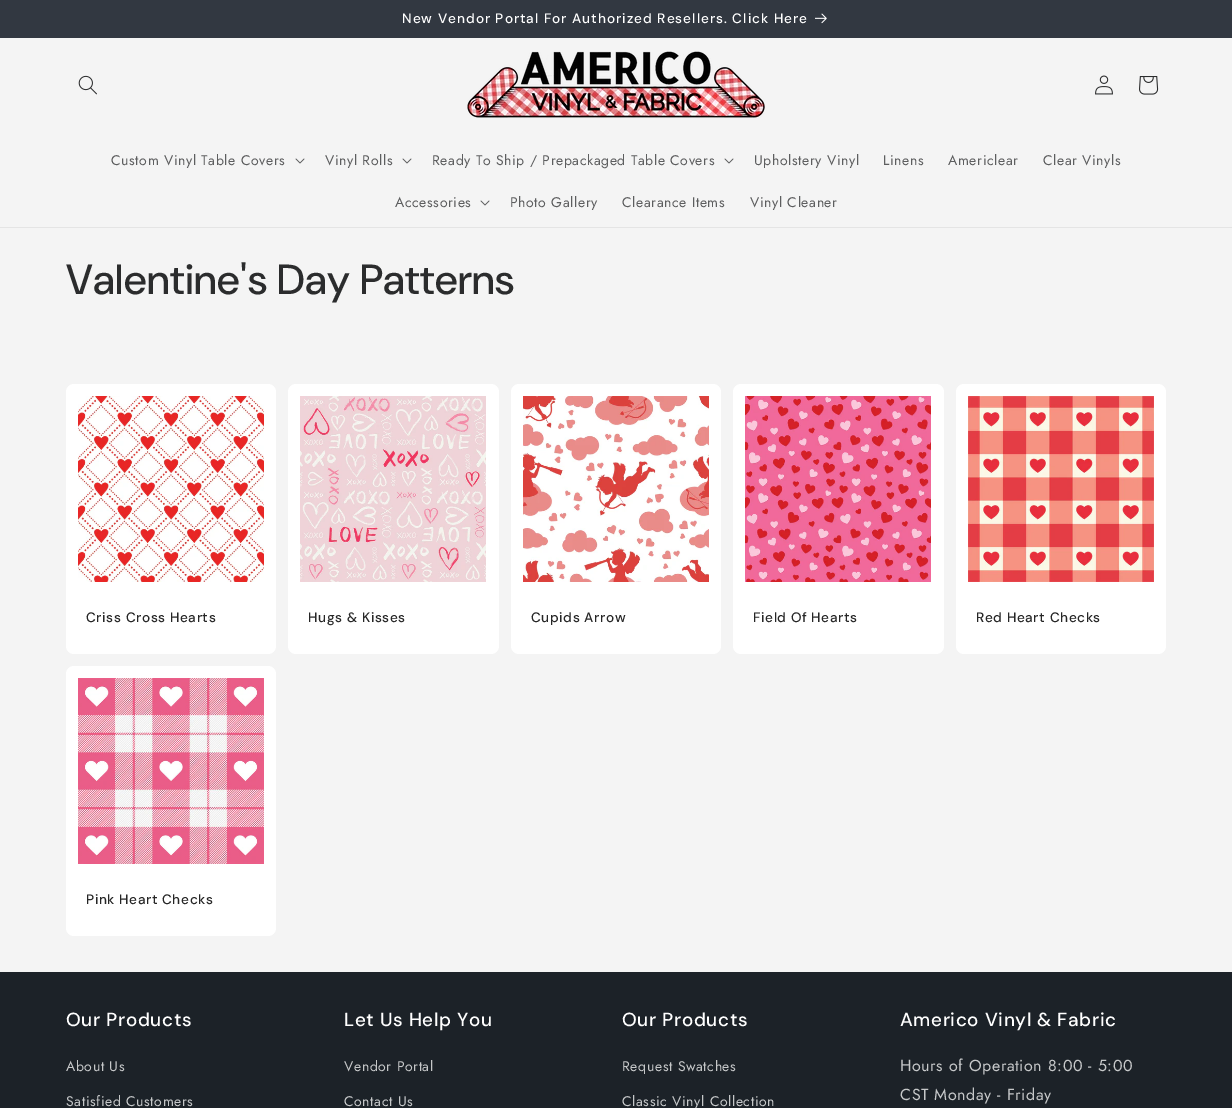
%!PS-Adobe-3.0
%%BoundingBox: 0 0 1232 1108
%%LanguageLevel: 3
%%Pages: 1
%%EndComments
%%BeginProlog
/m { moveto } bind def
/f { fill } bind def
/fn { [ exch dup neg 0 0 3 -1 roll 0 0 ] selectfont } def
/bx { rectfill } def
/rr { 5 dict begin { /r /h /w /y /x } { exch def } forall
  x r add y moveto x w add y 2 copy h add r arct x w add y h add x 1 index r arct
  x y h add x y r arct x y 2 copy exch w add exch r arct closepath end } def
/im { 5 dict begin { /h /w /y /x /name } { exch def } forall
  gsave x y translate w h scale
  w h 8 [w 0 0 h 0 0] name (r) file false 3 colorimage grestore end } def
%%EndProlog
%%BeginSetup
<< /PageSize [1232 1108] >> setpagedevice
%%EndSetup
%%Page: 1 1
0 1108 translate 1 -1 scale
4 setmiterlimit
0.957 setgray
0 0 1232 1108 bx
0.196 0.22 0.255 setrgbcolor
0 0 1232 38 bx
/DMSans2-Medium 13.65 fn
1 setgray
402 23 m 1 0 (New Vendor Portal For Authorized Resellers. Click Here) ashow
(image0.raw) 815 13 12 11 im
0.894 setgray
0 227 1232 1 bx
(image1.raw) 78 75 19 20 im
(image2.raw) 467 51 298 67 im
(image3.raw) 1095 75 18 20 im
(image4.raw) 1139 76 20 19 im
/Jost-Regular 14 fn
0.365 0.369 0.373 setrgbcolor
111 165 m 0.6 0 (Custom Vinyl Table Covers) ashow
(image5.raw) 295 158 10 6 im
325 165 m 0.6 0 (Vinyl Rolls) ashow
(image5.raw) 402 158 10 6 im
432 165 m 0.6 0 (Ready To Ship / Prepackaged Table Covers) ashow
(image5.raw) 724 158 10 6 im
754 165 m 0.6 0 (Upholstery Vinyl) ashow
883 165 m 0.6 0 (Linens) ashow
948 165 m 0.6 0 (Americlear) ashow
1043 165 m 0.6 0 (Clear Vinyls) ashow
395 207 m 0.6 0 (Accessories) ashow
(image5.raw) 480 200 10 6 im
510 207 m 0.6 0 (Photo Gallery) ashow
622 207 m 0.6 0 (Clearance Items) ashow
750 207 m 0.6 0 (Vinyl Cleaner) ashow
/DMSans-Medium 42 fn
0.169 0.173 0.176 setrgbcolor
66 294 m 0.6 0 (Valentine's Day Patterns) ashow
1 setgray
66 384 210 270 8 rr f
(image6.raw) 78 396 186 186 im
/DMSans2-Medium 13.65 fn
0.149 setgray
86 622 m 0.6 0 (Criss Cross Hearts) ashow
1 setgray
288 384 211 270 8 rr f
(image7.raw) 300 396 186 186 im
0.149 setgray
308 622 m 0.6 0 (Hugs & Kisses) ashow
1 setgray
511 384 210 270 8 rr f
(image8.raw) 523 396 186 186 im
0.149 setgray
531 622 m 0.6 0 (Cupids Arrow) ashow
1 setgray
733 384 211 270 8 rr f
(image9.raw) 745 396 186 186 im
0.149 setgray
753 622 m 0.6 0 (Field Of Hearts) ashow
1 setgray
956 384 210 270 8 rr f
(image10.raw) 968 396 186 186 im
0.149 setgray
976 622 m 0.6 0 (Red Heart Checks) ashow
1 setgray
66 666 210 270 8 rr f
(image11.raw) 78 678 186 186 im
0.149 setgray
86 904 m 0.6 0 (Pink Heart Checks) ashow
0.11 0.133 0.157 setrgbcolor
0 972 1232 136 bx
/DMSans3-Medium 18.9 fn
1 setgray
66 1026 m 0.6 0 (Our Products) ashow
/Jost-Regular 14 fn
0.776 0.784 0.788 setrgbcolor
66 1071 m 0.6 0 (About Us) ashow
66 1106 m 0.6 0 (Satisfied Customers) ashow
/DMSans3-Medium 18.9 fn
1 setgray
344 1026 m 0.6 0 (Let Us Help You) ashow
/Jost-Regular 14 fn
0.776 0.784 0.788 setrgbcolor
344 1071 m 0.6 0 (Vendor Portal) ashow
344 1106 m 0.6 0 (Contact Us) ashow
/DMSans3-Medium 18.9 fn
1 setgray
622 1026 m 0.6 0 (Our Products) ashow
/Jost-Regular 14 fn
0.776 0.784 0.788 setrgbcolor
622 1071 m 0.6 0 (Request Swatches) ashow
622 1106 m 0.6 0 (Classic Vinyl Collection) ashow
/DMSans3-Medium 18.9 fn
1 setgray
900 1026 m 0.6 0 (Americo Vinyl & Fabric) ashow
/Jost-Regular 16 fn
0.776 0.784 0.788 setrgbcolor
900 1071 m 0.6 0 (Hours of Operation 8:00 - 5:00) ashow
900 1100 m 0.6 0 (CST Monday - Friday) ashow
showpage
%%EOF
